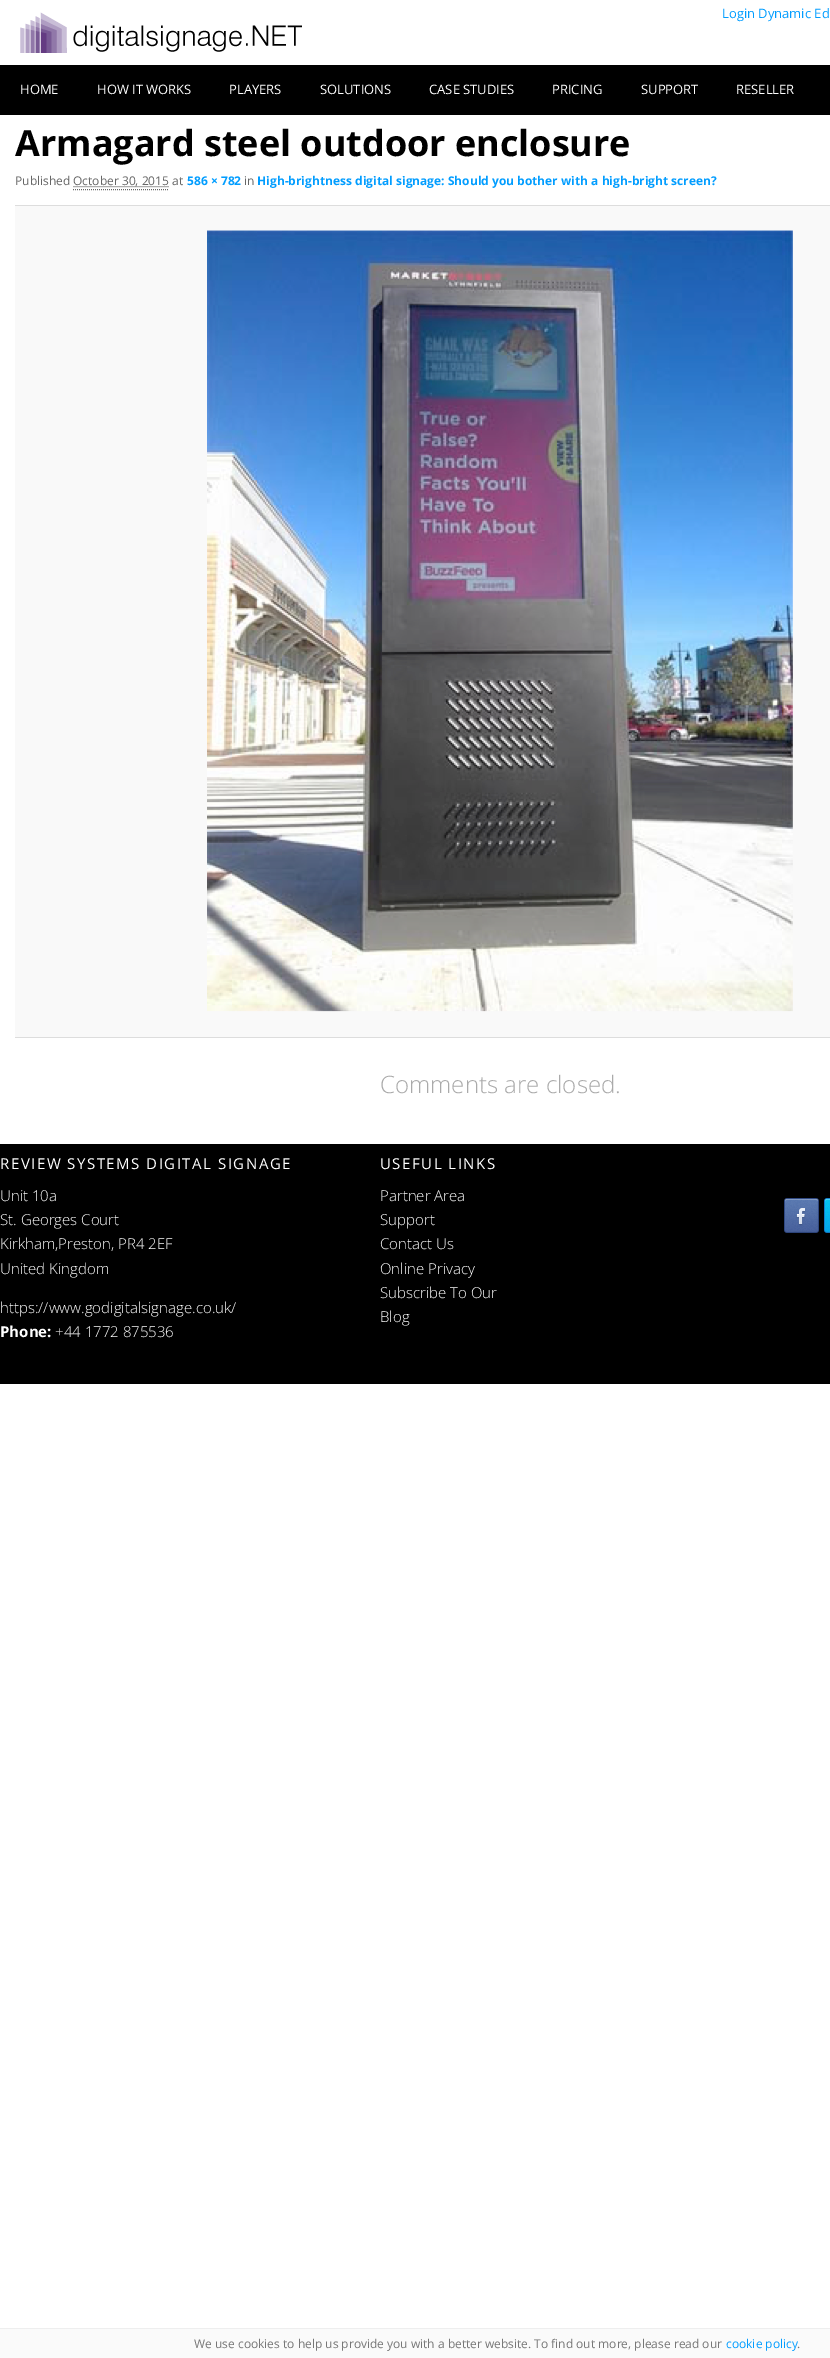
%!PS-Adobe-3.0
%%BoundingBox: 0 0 830 2358
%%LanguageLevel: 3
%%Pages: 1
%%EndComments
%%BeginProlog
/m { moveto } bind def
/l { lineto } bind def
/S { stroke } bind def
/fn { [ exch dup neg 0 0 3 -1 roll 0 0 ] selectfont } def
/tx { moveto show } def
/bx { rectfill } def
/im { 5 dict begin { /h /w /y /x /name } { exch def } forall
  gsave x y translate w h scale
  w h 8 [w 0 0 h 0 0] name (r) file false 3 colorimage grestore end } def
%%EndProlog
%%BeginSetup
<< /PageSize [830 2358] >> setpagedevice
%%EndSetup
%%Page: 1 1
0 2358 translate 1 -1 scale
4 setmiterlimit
1 setgray
0 0 830 2358 bx
(image0.raw) 20 12 282 41 im
/OpenSans-Regular 13 fn
0.004 0.616 1 setrgbcolor
(Login Dynamic Ed) 722 18 tx
0 setgray
0 65 830 50 bx
1 setgray
(HOME) 20 94 tx
(HOW IT WORKS) 97 94 tx
(PLAYERS) 229 94 tx
(SOLUTIONS) 320 94 tx
(CASE STUDIES) 429 94 tx
(PRICING) 552 94 tx
(SUPPORT) 641 94 tx
(RESELLER) 736 94 tx
/OpenSans-Bold 36 fn
0 setgray
(Armagard steel outdoor enclosure) 15 156 tx
/OpenSans-Regular 12 fn
0.4 setgray
(Published) 15 185 tx
[1 1] 0 setdash
73.5 186.5 m 169.5 186.5 l S
(October 30, 2015 at) 73 185 tx
73 189.5 m 169 189.5 l S
/OpenSans-Bold 12 fn
0.004 0.616 1 setrgbcolor
(586 × 782) 187 185 tx
/OpenSans-Regular 12 fn
0.4 setgray
(in) 244 185 tx
/OpenSans-Bold 12 fn
0.004 0.616 1 setrgbcolor
(High-brightness digital signage: Should you bother with a high-bright screen?) 257 185 tx
0.976 setgray
15 206 815 831 bx
0.867 setgray
15 205 815 1 bx
15 1037 815 1 bx
(image1.raw) 207 230 586 782 im
/OpenSans-Light 24 fn
0.667 setgray
(Comments are closed.) 380 1093 tx
0 setgray
0 1144 830 240 bx
/OpenSans-Regular 15 fn
1 setgray
0 1169 m 1.5 0 (REVIEW SYSTEMS DIGITAL SIGNAGE) ashow
/OpenSans-Light 15 fn
(Unit 10a) 0 1201 tx
(St. Georges Court) 0 1225 tx
(Kirkham,Preston, PR4 2EF) 0 1249 tx
(United Kingdom) 0 1274 tx
(https://www.godigitalsignage.co.uk/) 0 1313 tx
/OpenSans-Bold 15 fn
(Phone:) 0 1337 tx
/OpenSans-Light 15 fn
(+44 1772 875536) 55 1337 tx
/OpenSans-Regular 15 fn
380 1169 m 1.5 0 (USEFUL LINKS) ashow
/OpenSans-Light 15 fn
(Partner Area) 380 1201 tx
(Support) 380 1225 tx
(Contact Us) 380 1249 tx
(Online Privacy) 380 1274 tx
(Subscribe To Our) 380 1298 tx
(Blog) 380 1322 tx
(image2.raw) 784 1198 35 35 im
(image3.raw) 824 1198 6 35 im
0.98 setgray
0 2329 830 29 bx
0.933 setgray
0 2328 830 1 bx
/OpenSans-Regular 12 fn
0.467 setgray
(We use cookies to help us provide you with a better website. To find out more, please read our) 194 2348 tx
0.004 0.616 1 setrgbcolor
(cookie policy) 726 2348 tx
0.467 setgray
(.) 797 2348 tx
showpage
%%EOF
